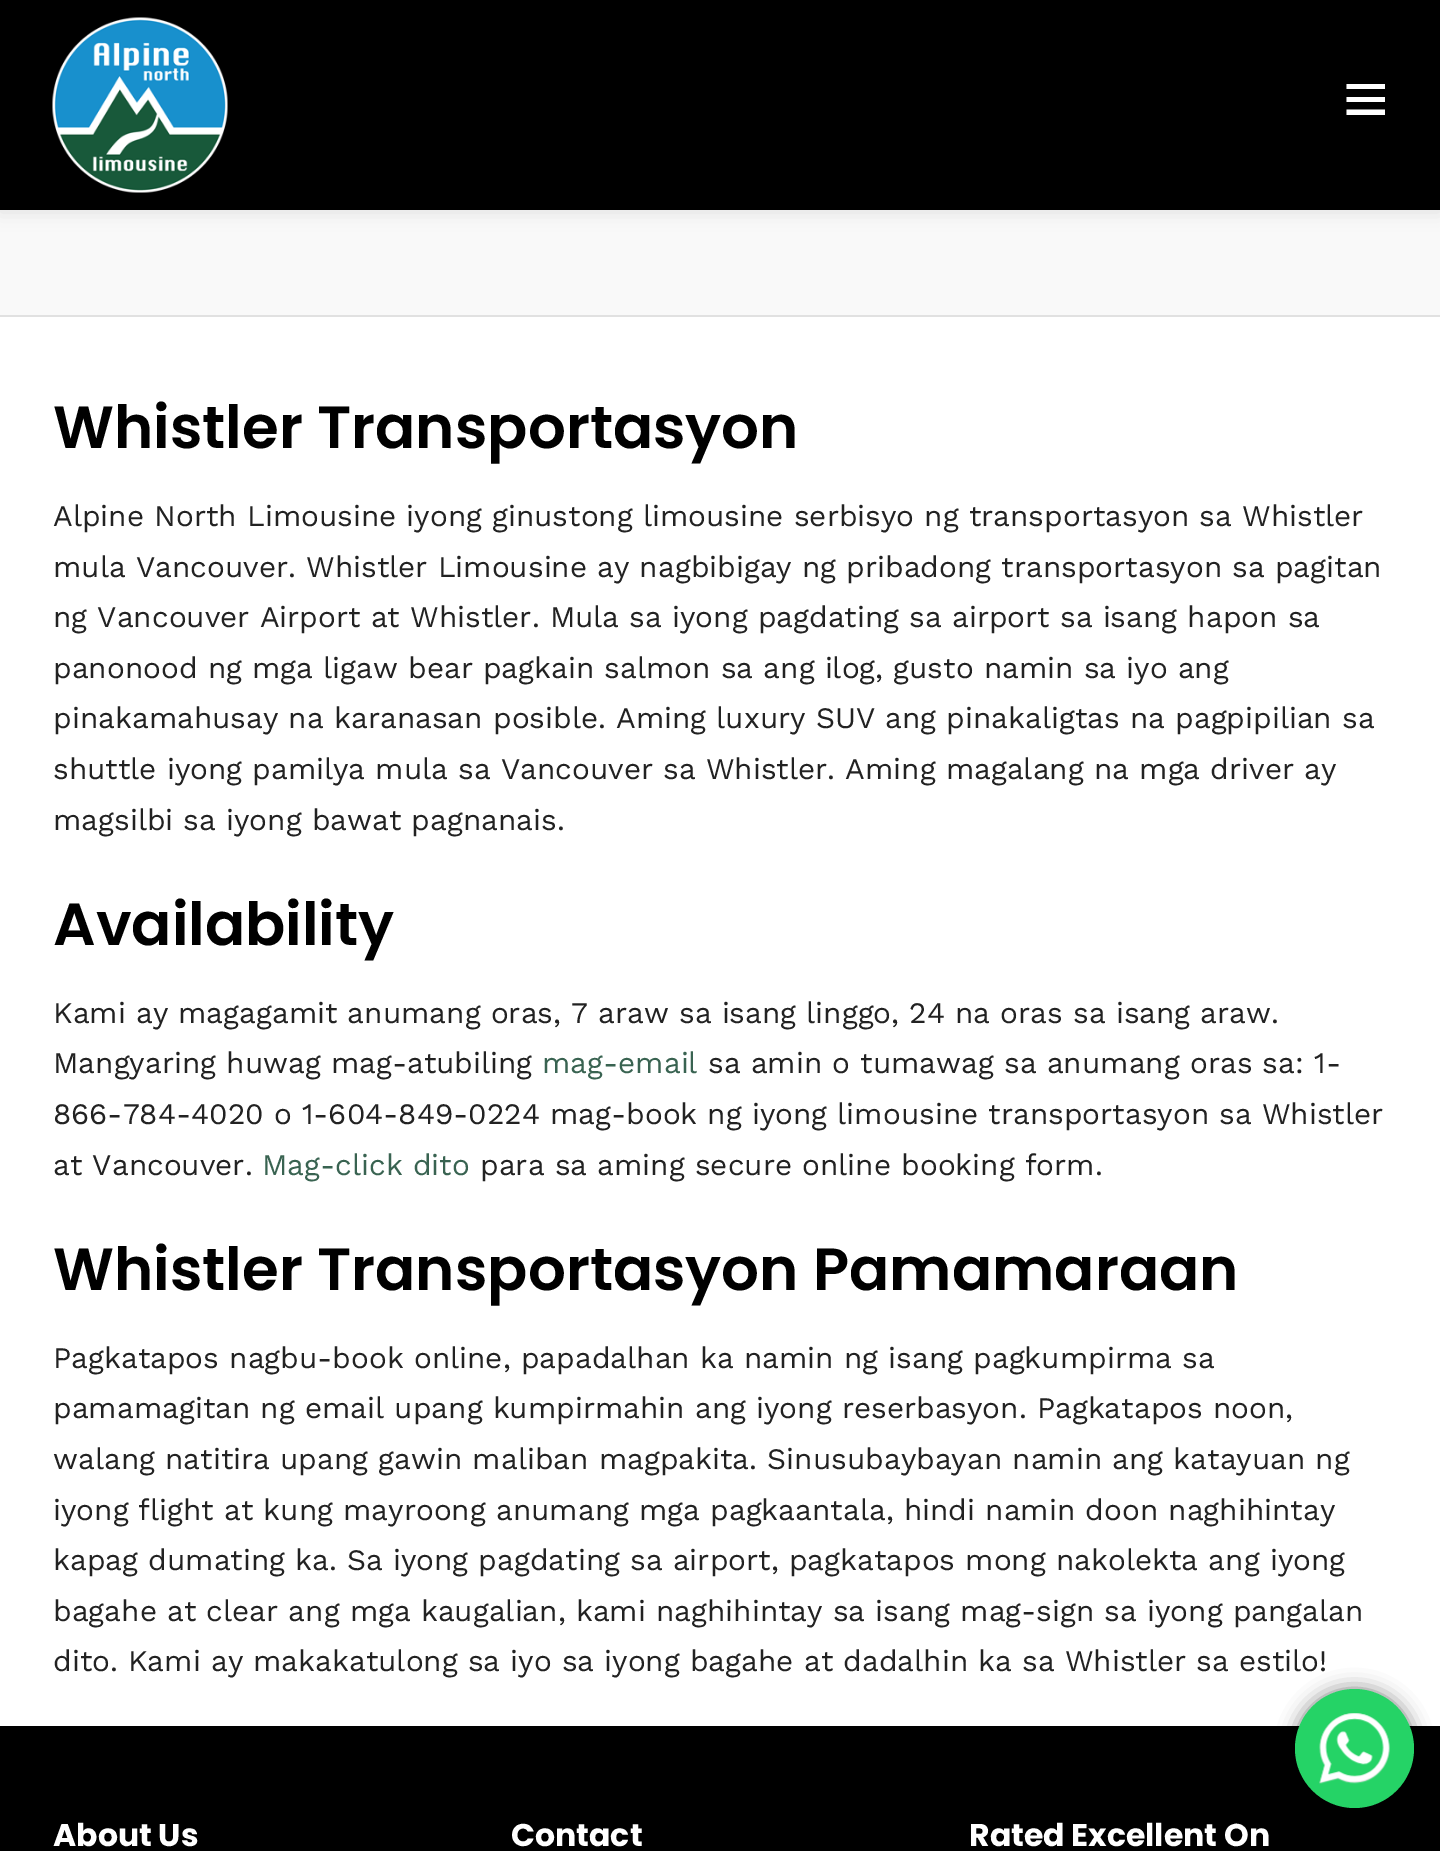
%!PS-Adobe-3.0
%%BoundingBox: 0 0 1440 1851
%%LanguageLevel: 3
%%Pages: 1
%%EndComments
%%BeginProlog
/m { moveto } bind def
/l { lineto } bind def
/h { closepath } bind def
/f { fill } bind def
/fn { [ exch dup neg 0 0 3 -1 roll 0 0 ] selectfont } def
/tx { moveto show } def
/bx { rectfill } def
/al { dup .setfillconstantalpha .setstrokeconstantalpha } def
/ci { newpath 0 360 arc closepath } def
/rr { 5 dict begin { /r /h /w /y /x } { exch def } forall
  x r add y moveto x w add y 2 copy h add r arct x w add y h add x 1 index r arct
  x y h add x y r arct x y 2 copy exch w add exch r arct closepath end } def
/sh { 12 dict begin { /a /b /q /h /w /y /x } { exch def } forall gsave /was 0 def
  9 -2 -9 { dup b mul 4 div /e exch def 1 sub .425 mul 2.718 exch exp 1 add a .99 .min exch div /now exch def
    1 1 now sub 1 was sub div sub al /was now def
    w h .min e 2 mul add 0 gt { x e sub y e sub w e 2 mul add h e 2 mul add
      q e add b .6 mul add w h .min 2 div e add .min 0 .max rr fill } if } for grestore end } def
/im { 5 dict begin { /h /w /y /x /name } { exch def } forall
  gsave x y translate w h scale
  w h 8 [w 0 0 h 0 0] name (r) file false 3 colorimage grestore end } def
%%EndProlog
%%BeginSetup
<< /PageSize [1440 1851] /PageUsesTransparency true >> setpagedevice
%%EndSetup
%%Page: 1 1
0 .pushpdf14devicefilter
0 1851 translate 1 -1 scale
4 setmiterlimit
1 setgray
0 0 1440 1851 bx
0.976 setgray
0 210 1440 105 bx
0 setgray
0 2 1440 210 0 9 0.1 sh
0 0 1440 210 bx
(image0.raw) 52 17 176 176 im
1 setgray
1385 84 m 1385 89 l 1346.5 89 l 1346.5 84 l h 1346.5 102 m 1385 102 l 1385 97 l 1346.5 97 l h 1346.5 115 m 1385 115 l 1385 109.5 l 1346.5 109.5 l h f
0.882 setgray
0 315 1440 2 bx
/Poppins-SemiBold 59.5 fn
0 setgray
(Whistler Transportasyon) 53 448 tx
/WorkSans-Regular 29.75 fn
0.133 setgray
(Alpine North Limousine iyong ginustong limousine serbisyo ng transportasyon sa Whistler) 53 526 tx
(mula Vancouver. Whistler Limousine ay nagbibigay ng pribadong transportasyon sa pagitan) 53 577 tx
(ng Vancouver Airport at Whistler. Mula sa iyong pagdating sa airport sa isang hapon sa) 53 627 tx
(panonood ng mga ligaw bear pagkain salmon sa ang ilog, gusto namin sa iyo ang) 53 678 tx
(pinakamahusay na karanasan posible. Aming luxury SUV ang pinakaligtas na pagpipilian sa) 53 728 tx
(shuttle iyong pamilya mula sa Vancouver sa Whistler. Aming magalang na mga driver ay) 53 779 tx
(magsilbi sa iyong bawat pagnanais.) 53 830 tx
/Poppins-SemiBold 59.5 fn
0 setgray
(Availability) 53 945 tx
/WorkSans-Regular 29.75 fn
0.133 setgray
(Kami ay magagamit anumang oras, 7 araw sa isang linggo, 24 na oras sa isang araw.) 53 1023 tx
(Mangyaring huwag mag-atubiling) 53 1073 tx
0.224 0.388 0.318 setrgbcolor
(mag-email) 542 1073 tx
0.133 setgray
(sa amin o tumawag sa anumang oras sa: 1-) 708 1073 tx
(866-784-4020 o 1-604-849-0224 mag-book ng iyong limousine transportasyon sa Whistler) 53 1124 tx
(at Vancouver.) 53 1175 tx
0.224 0.388 0.318 setrgbcolor
(Mag-click dito) 262 1175 tx
0.133 setgray
(para sa aming secure online booking form.) 480 1175 tx
/Poppins-SemiBold 59.5 fn
0 setgray
(Whistler Transportasyon Pamamaraan) 53 1290 tx
/WorkSans-Regular 29.75 fn
0.133 setgray
(Pagkatapos nagbu-book online, papadalhan ka namin ng isang pagkumpirma sa) 53 1368 tx
(pamamagitan ng email upang kumpirmahin ang iyong reserbasyon. Pagkatapos noon,) 53 1418 tx
(walang natitira upang gawin maliban magpakita. Sinusubaybayan namin ang katayuan ng) 53 1469 tx
(iyong flight at kung mayroong anumang mga pagkaantala, hindi namin doon naghihintay) 53 1520 tx
(kapag dumating ka. Sa iyong pagdating sa airport, pagkatapos mong nakolekta ang iyong) 53 1570 tx
(bagahe at clear ang mga kaugalian, kami naghihintay sa isang mag-sign sa iyong pangalan) 53 1621 tx
(dito. Kami ay makakatulong sa iyo sa iyong bagahe at dadalhin ka sa Whistler sa estilo!) 53 1671 tx
0 setgray
0 1726 1440 125 bx
/Poppins-Bold 31.5 fn
1 setgray
(About Us) 53 1846 tx
(Contact) 511 1846 tx
(Rated Excellent On) 969 1846 tx
0 setgray
1295 1689 119 119 59.5 9.5 0.5 sh
0.145 0.827 0.4 setrgbcolor
1354.5 1748.5 59.5 ci f
(image1.raw) 1319 1713 71 71 im
.poppdf14devicefilter showpage
%%EOF
